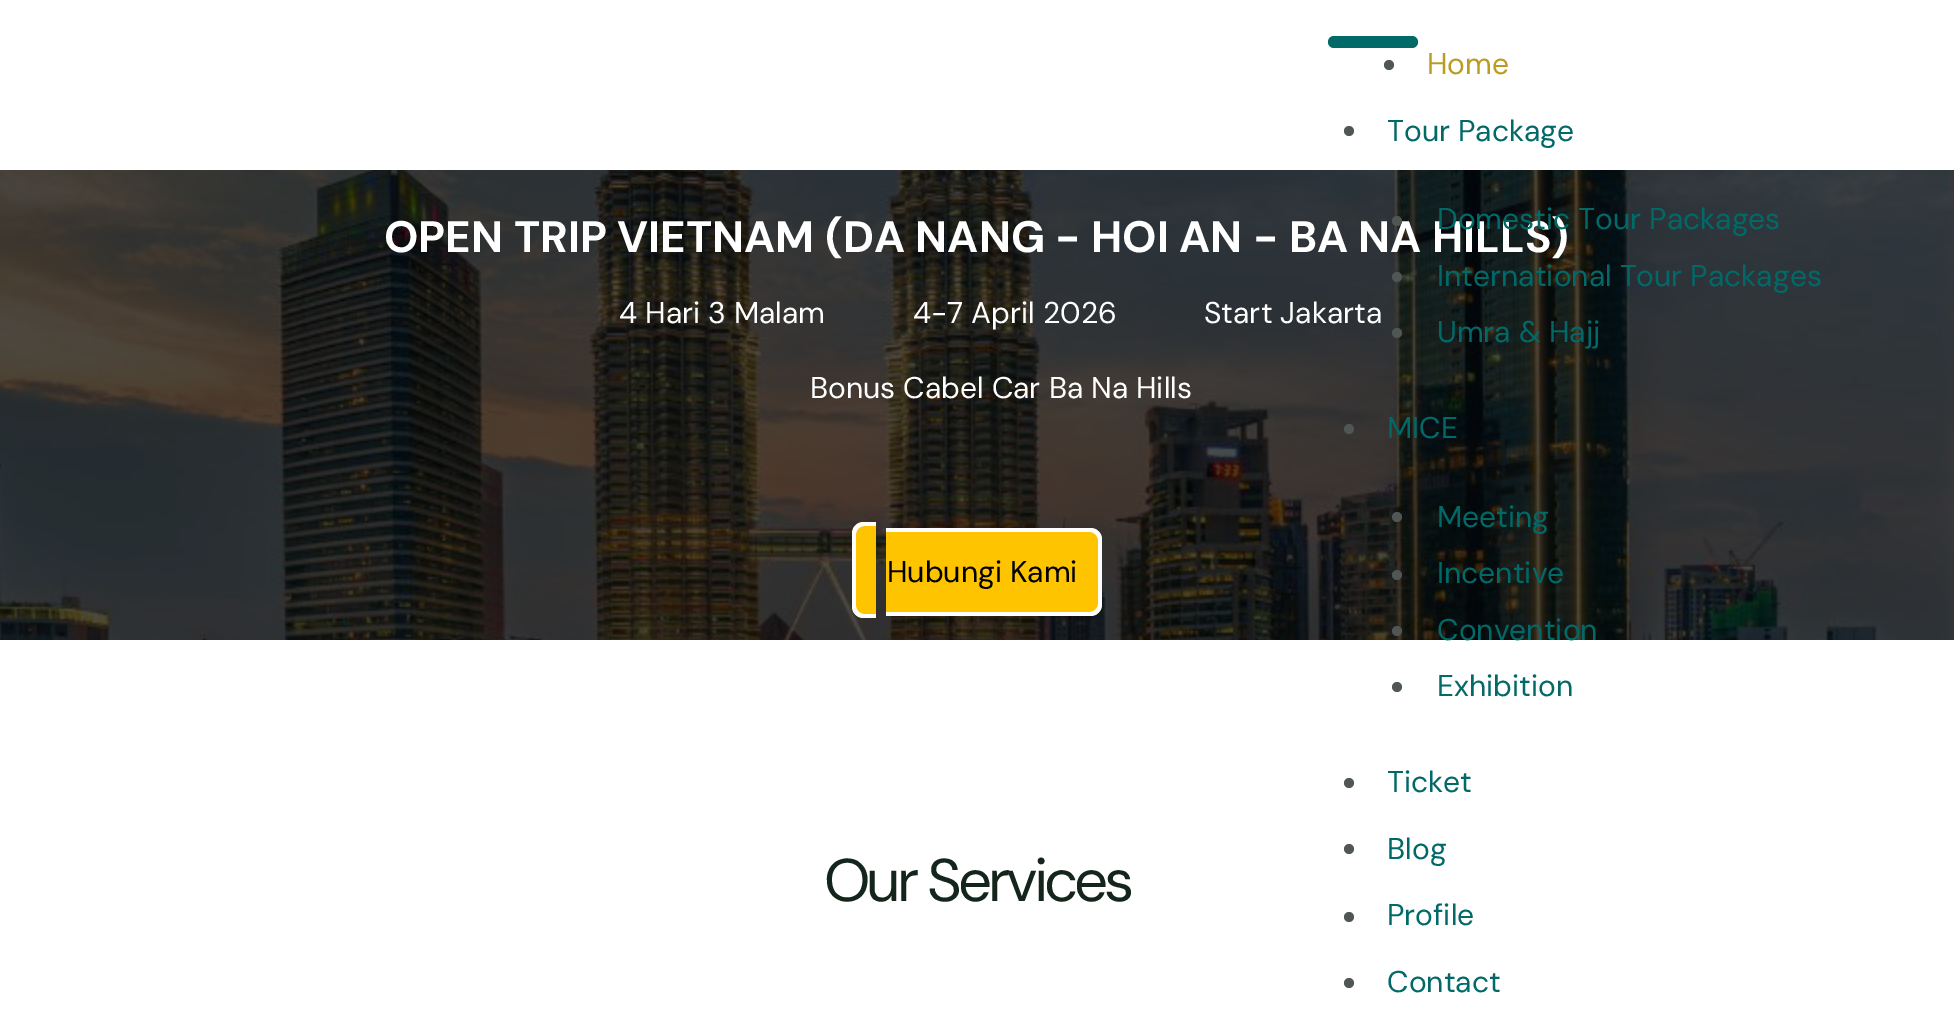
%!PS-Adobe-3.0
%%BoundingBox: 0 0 1954 1029
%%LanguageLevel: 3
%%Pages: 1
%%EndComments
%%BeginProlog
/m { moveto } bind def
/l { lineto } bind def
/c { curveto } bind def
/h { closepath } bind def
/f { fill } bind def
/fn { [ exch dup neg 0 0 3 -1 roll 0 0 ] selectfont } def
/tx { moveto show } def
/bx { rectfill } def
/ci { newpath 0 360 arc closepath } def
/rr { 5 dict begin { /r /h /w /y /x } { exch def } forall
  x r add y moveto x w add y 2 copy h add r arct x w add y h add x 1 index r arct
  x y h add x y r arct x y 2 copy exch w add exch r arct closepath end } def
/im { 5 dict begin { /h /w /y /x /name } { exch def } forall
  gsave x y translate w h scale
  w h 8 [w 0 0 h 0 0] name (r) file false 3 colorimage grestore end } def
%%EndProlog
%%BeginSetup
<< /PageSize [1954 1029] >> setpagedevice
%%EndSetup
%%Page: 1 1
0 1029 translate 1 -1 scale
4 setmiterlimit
1 setgray
0 0 1954 1029 bx
0 setgray
0 170 1954 470 bx
(image0.raw) 0 170 1954 470 im
/DMSans-Bold 44 fn
1 setgray
(OPEN TRIP VIETNAM \(DA NANG - HOI AN - BA NA HILLS\)) 384 252 tx
/DMSans-Regular 30 fn
(4 Hari 3 Malam) 619 323 tx
(4-7 April 2026) 913 323 tx
(Start Jakarta) 1204 323 tx
(Bonus Cabel Car Ba Na Hills) 810 398 tx
1 0.769 0 setrgbcolor
886 528 m 1090 528 l 1096.5 528 1102 533.5 1102 540 c 1102 604 l 1102 610.5 1096.5 616 1090 616 c 886 616 l h f
1 setgray
886 528 m 1090 528 l 1097 528 1102 533 1102 540 c 1102 604 l 1102 611 1097 616 1090 616 c 886 616 l h 886 532 m 1090 532 l 1094 532 1098 536 1098 540 c 1098 604 l 1098 608 1094 612 1090 612 c 886 612 l h eofill
0 setgray
(Hubungi Kami) 887 582 tx
1 0.769 0 setrgbcolor
864 522 m 876 522 l 876 618 l 864 618 l 857.5 618 852 612.5 852 606 c 852 534 l 852 527.5 857.5 522 864 522 c h f
1 setgray
864 522 m 876 522 l 876 618 l 864 618 l 857 618 852 613 852 606 c 852 534 l 852 527 857 522 864 522 c h 864 526 m 876 526 l 876 614 l 864 614 l 860 614 856 610 856 606 c 856 534 l 856 530 860 526 864 526 c h eofill
/DMSans-Regular 60 fn
0.078 0.149 0.11 setrgbcolor
824 901 m -4 0 (Our Services) ashow
0.004 0.412 0.408 setrgbcolor
1328 36 90 12 6 rr f
0.31 0.337 0.333 setrgbcolor
1389 65 5 ci f
/DMSans-Regular 30 fn
0.733 0.612 0.129 setrgbcolor
(Home) 1427 74 tx
0.31 0.337 0.333 setrgbcolor
1349 131 5 ci f
0.004 0.412 0.408 setrgbcolor
(Tour Package) 1387 141 tx
0.31 0.337 0.333 setrgbcolor
1397 221 5 ci f
0.004 0.412 0.408 setrgbcolor
(Domestic Tour Packages) 1437 229 tx
0.31 0.337 0.333 setrgbcolor
1397 277 5 ci f
0.004 0.412 0.408 setrgbcolor
(International Tour Packages) 1437 286 tx
0.31 0.337 0.333 setrgbcolor
1397 333 5 ci f
0.004 0.412 0.408 setrgbcolor
(Umra & Hajj) 1437 342 tx
0.31 0.337 0.333 setrgbcolor
1349 429 5 ci f
0.004 0.412 0.408 setrgbcolor
(MICE) 1387 438 tx
0.31 0.337 0.333 setrgbcolor
1397 517 5 ci f
0.004 0.412 0.408 setrgbcolor
(Meeting) 1437 527 tx
0.31 0.337 0.333 setrgbcolor
1397 575 5 ci f
0.004 0.412 0.408 setrgbcolor
(Incentive) 1437 583 tx
0.31 0.337 0.333 setrgbcolor
1397 631 5 ci f
0.004 0.412 0.408 setrgbcolor
(Convention) 1437 640 tx
0.31 0.337 0.333 setrgbcolor
1397 687 5 ci f
0.004 0.412 0.408 setrgbcolor
(Exhibition) 1437 696 tx
0.31 0.337 0.333 setrgbcolor
1349 783 5 ci f
0.004 0.412 0.408 setrgbcolor
(Ticket) 1387 792 tx
0.31 0.337 0.333 setrgbcolor
1349 849 5 ci f
0.004 0.412 0.408 setrgbcolor
(Blog) 1387 859 tx
0.31 0.337 0.333 setrgbcolor
1349 917 5 ci f
0.004 0.412 0.408 setrgbcolor
(Profile) 1387 925 tx
0.31 0.337 0.333 setrgbcolor
1349 983 5 ci f
0.004 0.412 0.408 setrgbcolor
(Contact) 1387 992 tx
showpage
%%EOF
